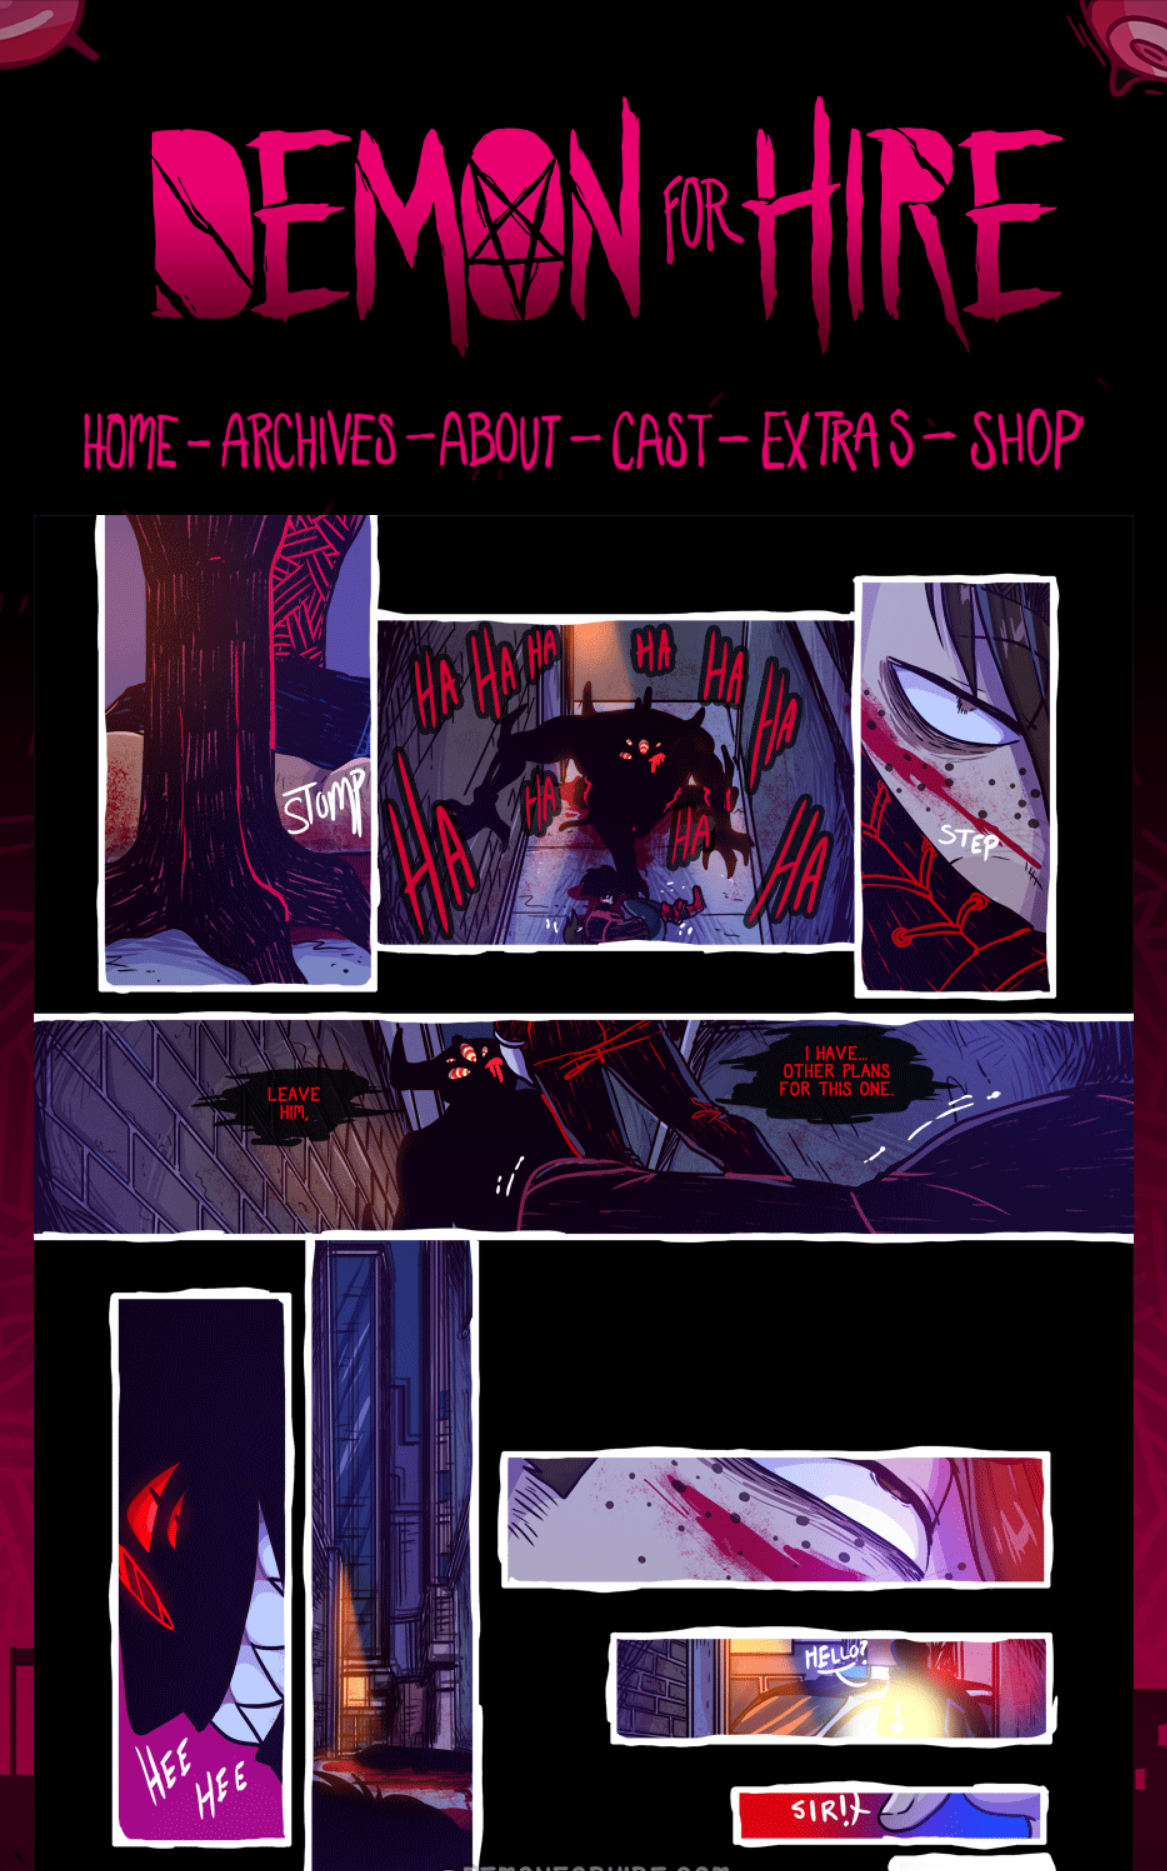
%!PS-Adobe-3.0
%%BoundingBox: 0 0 1167 1871
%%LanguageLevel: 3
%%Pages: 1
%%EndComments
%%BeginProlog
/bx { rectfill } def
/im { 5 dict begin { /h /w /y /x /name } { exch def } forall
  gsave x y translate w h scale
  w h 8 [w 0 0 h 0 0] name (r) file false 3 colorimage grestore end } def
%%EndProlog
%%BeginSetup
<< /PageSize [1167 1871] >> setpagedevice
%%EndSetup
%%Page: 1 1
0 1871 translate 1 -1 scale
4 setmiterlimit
1 setgray
0 0 1167 1871 bx
(image0.raw) 0 0 1167 1871 im
(image1.raw) 82 412 130 60 im
(image2.raw) 220 408 217 64 im
(image3.raw) 438 410 165 62 im
(image4.raw) 611 410 139 62 im
(image5.raw) 761 407 197 65 im
(image6.raw) 969 407 116 64 im
(image7.raw) 33 515 1101 1356 im
showpage
%%EOF
